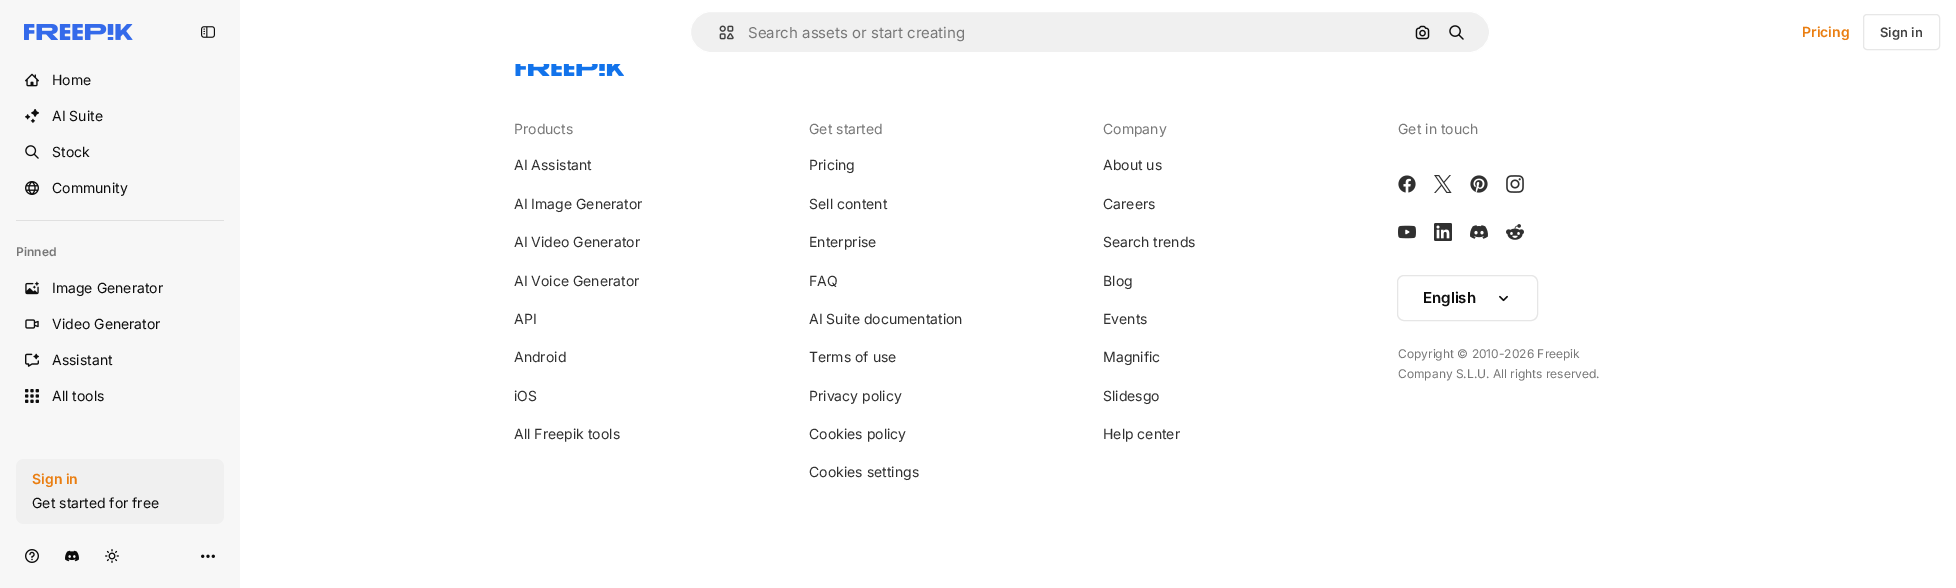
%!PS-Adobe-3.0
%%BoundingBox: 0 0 1956 588
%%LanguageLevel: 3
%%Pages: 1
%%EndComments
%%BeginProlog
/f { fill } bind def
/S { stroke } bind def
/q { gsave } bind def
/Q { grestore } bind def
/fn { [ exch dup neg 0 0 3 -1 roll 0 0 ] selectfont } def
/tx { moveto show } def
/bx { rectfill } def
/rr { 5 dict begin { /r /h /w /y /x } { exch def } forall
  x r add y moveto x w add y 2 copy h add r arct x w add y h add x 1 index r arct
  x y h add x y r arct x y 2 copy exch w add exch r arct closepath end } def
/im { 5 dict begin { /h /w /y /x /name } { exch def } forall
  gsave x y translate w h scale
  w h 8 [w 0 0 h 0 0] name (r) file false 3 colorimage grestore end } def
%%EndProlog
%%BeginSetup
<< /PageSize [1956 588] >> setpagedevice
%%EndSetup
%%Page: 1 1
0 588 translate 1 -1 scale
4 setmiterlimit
1 setgray
0 0 1956 588 bx
0.969 setgray
0 0 240 588 bx
(image0.raw) 24 24 109 16 im
(image1.raw) 201 26 14 12 im
(image2.raw) 25 73 14 14 im
/Inter-Regular 14 fn
0.051 setgray
(Home) 52 85 tx
(image3.raw) 25 109 14 14 im
(AI Suite) 52 121 tx
(image4.raw) 25 145 14 14 im
(Stock) 52 157 tx
(image5.raw) 25 181 14 14 im
(Community) 52 193 tx
0.878 setgray
16 220 208 1 bx
/Inter-SemiBold 12 fn
0.471 setgray
(Pinned) 16 256 tx
(image6.raw) 25 281 14 14 im
/Inter-Regular 14 fn
0.051 setgray
(Image Generator) 52 293 tx
(image7.raw) 25 319 14 10 im
(Video Generator) 52 329 tx
(image8.raw) 25 353 14 14 im
(Assistant) 52 365 tx
(image9.raw) 25 389 14 14 im
(All tools) 52 401 tx
0.941 setgray
16 459 208 65 8 rr f
/Inter-SemiBold 14 fn
0.918 0.494 0.067 setrgbcolor
(Sign in) 32 484 tx
/Inter-Regular 14 fn
0.051 setgray
(Get started for free) 32 508 tx
(image10.raw) 25 549 14 14 im
(image11.raw) 65 550 14 12 im
(image12.raw) 105 549 14 14 im
(image13.raw) 201 554 14 4 im
0.941 setgray
690.5 11.5 799 41 20.5 rr q f Q
1 setgray
S
(image14.raw) 719 25 15 15 im
/Inter-Regular 15 fn
0.471 setgray
(Search assets or start creating) 748 38 tx
(image15.raw) 1415 25 15 15 im
(image16.raw) 1449 25 15 15 im
/Inter-SemiBold 14 fn
0.918 0.494 0.067 setrgbcolor
(Pricing) 1802 37 tx
0.906 setgray
1863.5 14.5 76 35 3.5 rr S
/Inter-SemiBold 13 fn
0.259 setgray
(Sign in) 1880 37 tx
(image17.raw) 515 64 109 12 im
/Inter-Regular 14 fn
0.471 setgray
(Products) 514 134 tx
0.188 setgray
(AI Assistant) 514 170 tx
(AI Image Generator) 514 209 tx
(AI Video Generator) 514 247 tx
(AI Voice Generator) 514 286 tx
(API) 514 324 tx
(Android) 514 362 tx
(iOS) 514 401 tx
(All Freepik tools) 514 439 tx
0.471 setgray
(Get started) 809 134 tx
0.188 setgray
(Pricing) 809 170 tx
(Sell content) 809 209 tx
(Enterprise) 809 247 tx
(FAQ) 809 286 tx
(AI Suite documentation) 809 324 tx
(Terms of use) 809 362 tx
(Privacy policy) 809 401 tx
(Cookies policy) 809 439 tx
(Cookies settings) 809 477 tx
0.471 setgray
(Company) 1103 134 tx
0.188 setgray
(About us) 1103 170 tx
(Careers) 1103 209 tx
(Search trends) 1103 247 tx
(Blog) 1103 286 tx
(Events) 1103 324 tx
(Magnific) 1103 362 tx
(Slidesgo) 1103 401 tx
(Help center) 1103 439 tx
0.471 setgray
(Get in touch) 1398 134 tx
(image18.raw) 1398 175 18 18 im
(image19.raw) 1434 175 18 18 im
(image20.raw) 1470 175 18 18 im
(image21.raw) 1506 175 18 18 im
(image22.raw) 1398 225 18 14 im
(image23.raw) 1434 223 18 18 im
(image24.raw) 1470 225 18 14 im
(image25.raw) 1506 224 18 16 im
0.902 setgray
1397.5 275.5 140 45 6.5 rr S
/Inter-SemiBold 15 fn
0.051 setgray
(English) 1423 303 tx
(image26.raw) 1499 295 9 7 im
/Inter-Regular 12 fn
0.471 setgray
(Copyright © 2010-2026 Freepik) 1398 358 tx
(Company S.L.U. All rights reserved.) 1398 378 tx
showpage
%%EOF
